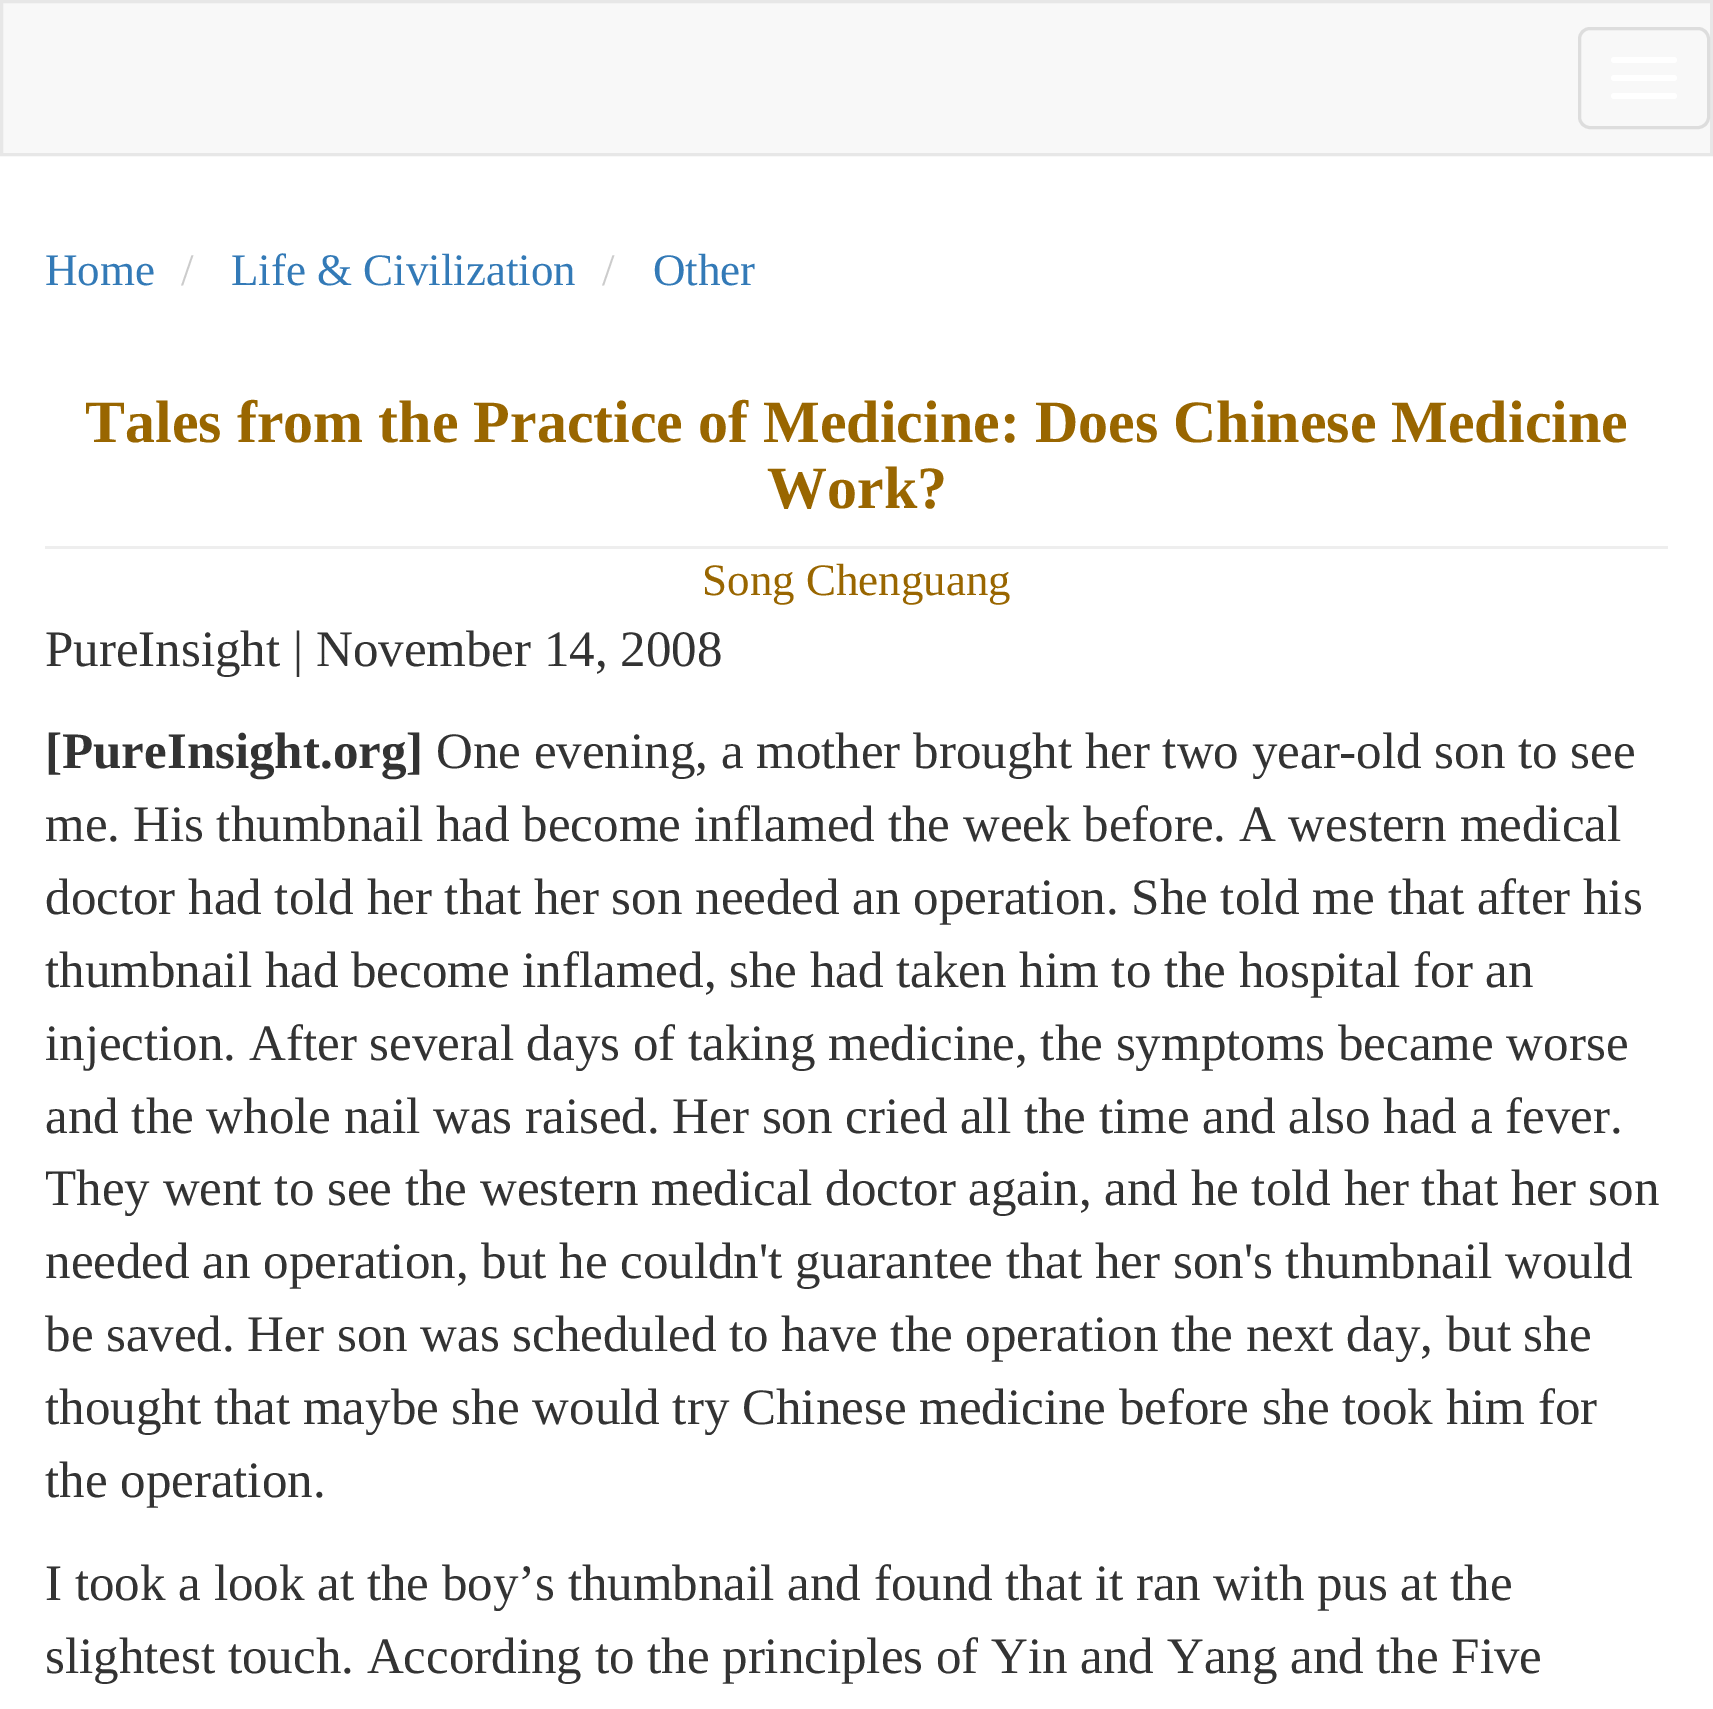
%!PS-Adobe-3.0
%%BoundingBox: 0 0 1713 1709
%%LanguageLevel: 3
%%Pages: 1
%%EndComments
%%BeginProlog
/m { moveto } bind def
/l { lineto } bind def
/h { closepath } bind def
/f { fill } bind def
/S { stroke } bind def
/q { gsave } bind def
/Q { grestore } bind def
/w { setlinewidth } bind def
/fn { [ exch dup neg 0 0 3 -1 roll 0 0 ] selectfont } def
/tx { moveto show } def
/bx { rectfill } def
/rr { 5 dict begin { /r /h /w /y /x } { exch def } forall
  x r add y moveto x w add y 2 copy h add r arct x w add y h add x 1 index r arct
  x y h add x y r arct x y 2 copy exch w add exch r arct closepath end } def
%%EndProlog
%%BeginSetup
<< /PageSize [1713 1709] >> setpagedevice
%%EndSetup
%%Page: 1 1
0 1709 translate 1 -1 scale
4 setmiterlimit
1 setgray
0 0 1713 1709 bx
0.973 setgray
1.5 1.5 m 1711.5 1.5 l 1711.5 154.5 l 1.5 154.5 l h q f Q
0.906 setgray
3 w
S
0.867 setgray
1579.5 28.5 129 99 10.5 rr S
1 setgray
1611 57 66 6 3 rr f
1611 75 66 6 3 rr f
1611 93 66 6 3 rr f
/LiberationSerif-Regular 45 fn
0.2 0.478 0.718 setrgbcolor
(Home) 45 285 tx
0.8 setgray
(/) 181 285 tx
0.2 0.478 0.718 setrgbcolor
(Life & Civilization) 231 285 tx
0.8 setgray
(/) 602 285 tx
0.2 0.478 0.718 setrgbcolor
(Other) 653 285 tx
0.933 setgray
45 546 1623 3 bx
/LiberationSerif-Bold 60 fn
0.6 0.4 0 setrgbcolor
(Tales from the Practice of Medicine: Does Chinese Medicine) 85 442 tx
(Work?) 767 508 tx
/LiberationSerif-Regular 45 fn
(Song Chenguang) 702 595 tx
/LiberationSerif-Regular 51 fn
0.2 setgray
(PureInsight | November 14, 2008) 45 666 tx
/LiberationSerif-Bold 51 fn
([PureInsight.org]) 45 768 tx
/LiberationSerif-Regular 51 fn
(One evening, a mother brought her two year-old son to see) 436 768 tx
(me. His thumbnail had become inflamed the week before. A western medical) 45 841 tx
(doctor had told her that her son needed an operation. She told me that after his) 45 914 tx
(thumbnail had become inflamed, she had taken him to the hospital for an) 45 987 tx
(injection. After several days of taking medicine, the symptoms became worse) 45 1060 tx
(and the whole nail was raised. Her son cried all the time and also had a fever.) 45 1133 tx
(They went to see the western medical doctor again, and he told her that her son) 45 1205 tx
(needed an operation, but he couldn't guarantee that her son's thumbnail would) 45 1278 tx
(be saved. Her son was scheduled to have the operation the next day, but she) 45 1351 tx
(thought that maybe she would try Chinese medicine before she took him for) 45 1424 tx
(the operation.) 45 1497 tx
(I took a look at the boy’s thumbnail and found that it ran with pus at the) 45 1600 tx
(slightest touch. According to the principles of Yin and Yang and the Five) 45 1673 tx
showpage
%%EOF
